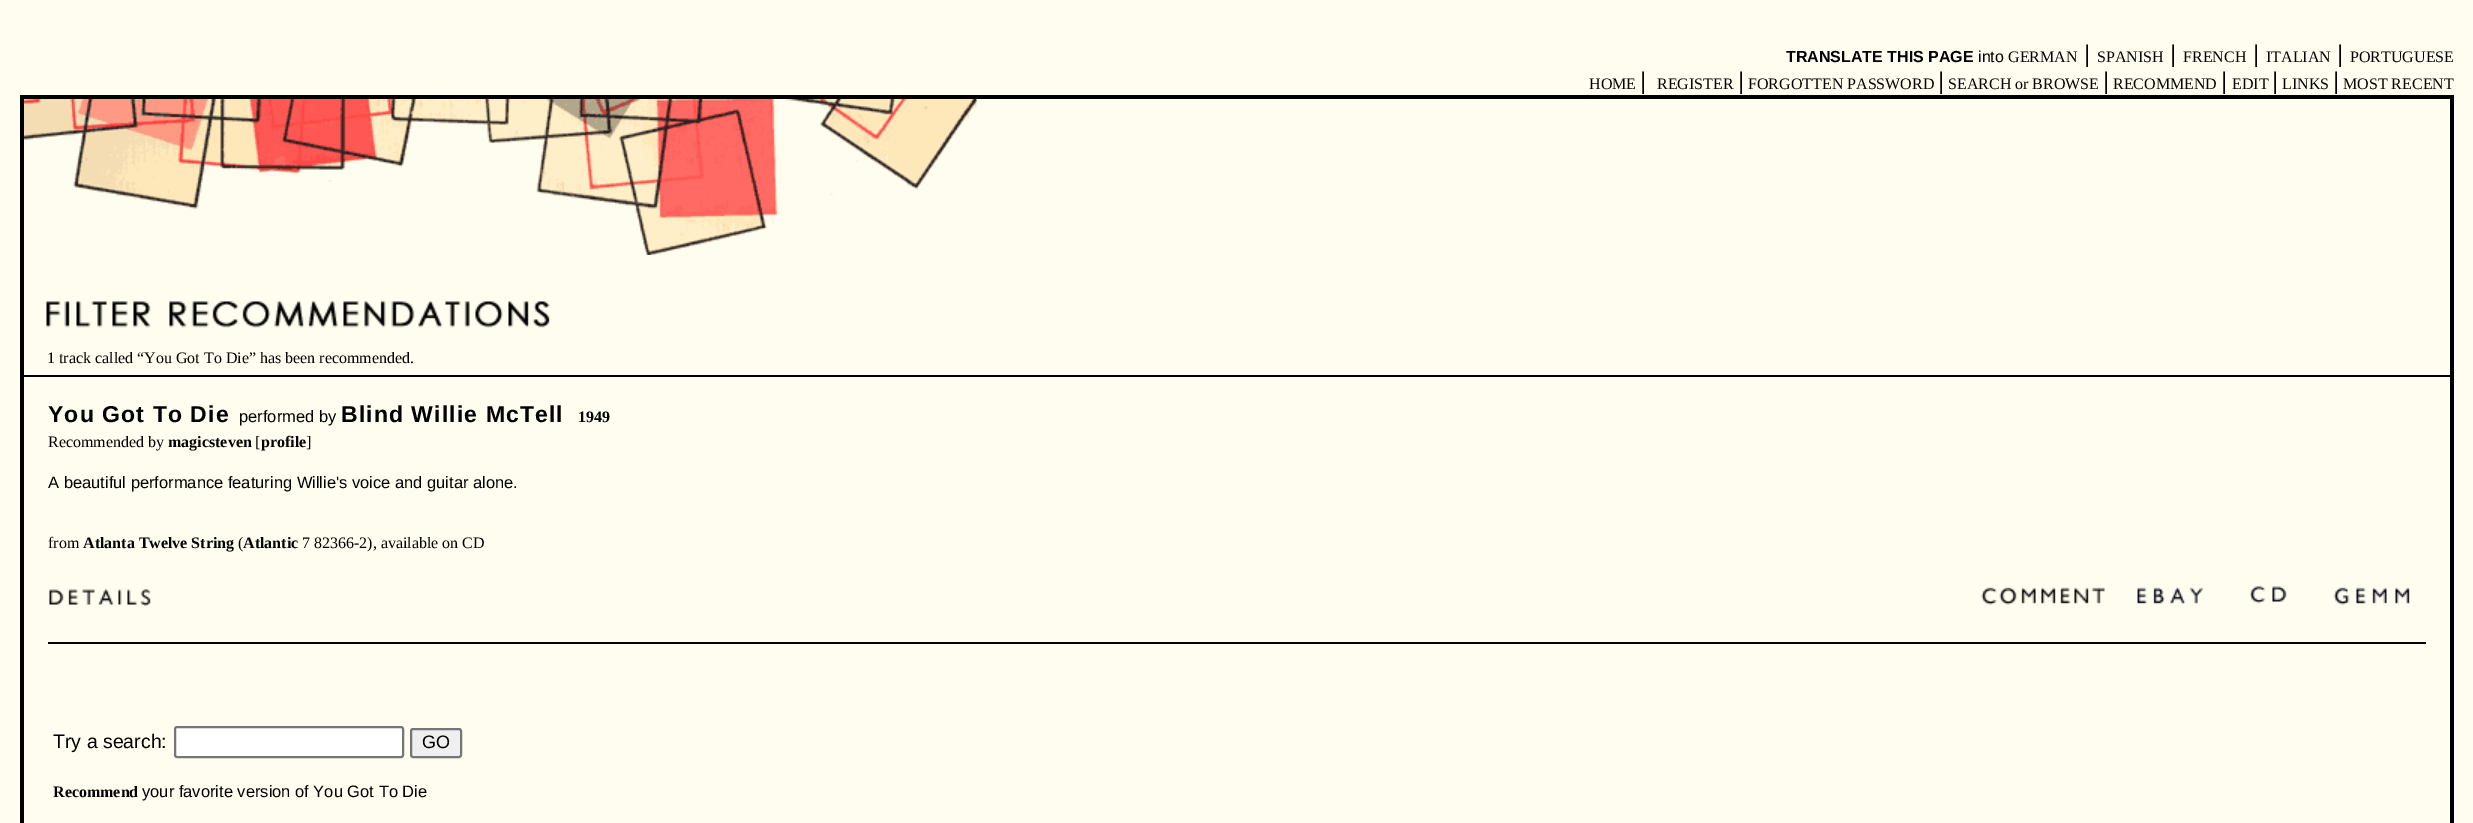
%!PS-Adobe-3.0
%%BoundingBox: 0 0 2473 823
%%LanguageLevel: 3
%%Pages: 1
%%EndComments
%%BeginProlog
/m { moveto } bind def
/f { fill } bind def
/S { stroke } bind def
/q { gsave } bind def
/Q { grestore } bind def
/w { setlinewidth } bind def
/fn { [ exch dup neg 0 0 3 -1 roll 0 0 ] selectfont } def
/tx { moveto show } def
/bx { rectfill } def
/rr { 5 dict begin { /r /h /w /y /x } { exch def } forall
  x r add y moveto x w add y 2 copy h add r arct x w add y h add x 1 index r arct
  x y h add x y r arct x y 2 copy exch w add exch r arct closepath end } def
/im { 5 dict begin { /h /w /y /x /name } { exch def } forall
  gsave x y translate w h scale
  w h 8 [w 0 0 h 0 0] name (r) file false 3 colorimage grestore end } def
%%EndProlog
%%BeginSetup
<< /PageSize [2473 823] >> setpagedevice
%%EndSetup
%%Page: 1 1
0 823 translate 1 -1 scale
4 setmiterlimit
1 0.992 0.937 setrgbcolor
0 0 2473 823 bx
/LiberationSans-Bold 16 fn
0 setgray
(TRANSLATE THIS PAGE) 1786 62 tx
/LiberationSans-Regular 16 fn
(into) 1978 62 tx
/LiberationSerif-Regular 16 fn
(GERMAN) 2008 62 tx
/LiberationSans-Regular 24 fn
(|) 2084 62 tx
/LiberationSerif-Regular 16 fn
(SPANISH) 2097 62 tx
/LiberationSans-Regular 24 fn
(|) 2170 62 tx
/LiberationSerif-Regular 16 fn
(FRENCH) 2183 62 tx
/LiberationSans-Regular 24 fn
(|) 2253 62 tx
/LiberationSerif-Regular 16 fn
(ITALIAN) 2266 62 tx
/LiberationSans-Regular 24 fn
(|) 2337 62 tx
/LiberationSerif-Regular 16 fn
(PORTUGUESE) 2350 62 tx
(HOME) 1589 89 tx
/LiberationSans-Regular 24 fn
(|) 1640 89 tx
/LiberationSerif-Regular 16 fn
(REGISTER) 1657 89 tx
/LiberationSans-Regular 24 fn
(|) 1738 89 tx
/LiberationSerif-Regular 16 fn
(FORGOTTEN PASSWORD) 1748 89 tx
/LiberationSans-Regular 24 fn
(|) 1938 89 tx
/LiberationSerif-Regular 16 fn
(SEARCH or BROWSE) 1948 89 tx
/LiberationSans-Regular 24 fn
(|) 2103 89 tx
/LiberationSerif-Regular 16 fn
(RECOMMEND) 2113 89 tx
/LiberationSans-Regular 24 fn
(|) 2221 89 tx
/LiberationSerif-Regular 16 fn
(EDIT) 2232 89 tx
/LiberationSans-Regular 24 fn
(|) 2272 89 tx
/LiberationSerif-Regular 16 fn
(LINKS) 2282 89 tx
/LiberationSans-Regular 24 fn
(|) 2333 89 tx
/LiberationSerif-Regular 16 fn
(MOST RECENT) 2343 89 tx
20 95 2434 728 bx
1 0.992 0.937 setrgbcolor
24 99 2426 724 bx
(image0.raw) 24 99 953 156 im
(image1.raw) 46 301 504 27 im
0 setgray
(1 track called “You Got To Die” has been recommended.) 47 363 tx
24 375 2426 2 bx
/LiberationSans-Bold 23 fn
48 422 m 1.1 0 (You Got To Die) ashow
/LiberationSans-Regular 16.5 fn
(performed by) 239 422 tx
/LiberationSans-Bold 23 fn
341 422 m 1.1 0 (Blind Willie McTell) ashow
/LiberationSerif-Bold 16 fn
(1949) 578 422 tx
/LiberationSerif-Regular 16 fn
(Recommended by) 48 447 tx
/LiberationSerif-Bold 16 fn
(magicsteven) 168 447 tx
/LiberationSerif-Regular 16 fn
([) 255 447 tx
/LiberationSerif-Bold 16 fn
(profile) 261 447 tx
/LiberationSerif-Regular 16 fn
(]) 306 447 tx
/LiberationSans-Regular 16.5 fn
(A beautiful performance featuring Willie's voice and guitar alone.) 48 488 tx
/LiberationSerif-Regular 16 fn
(from) 48 548 tx
/LiberationSerif-Bold 16 fn
(Atlanta Twelve String) 83 548 tx
/LiberationSerif-Regular 16 fn
(\() 238 548 tx
/LiberationSerif-Bold 16 fn
(Atlantic) 243 548 tx
/LiberationSerif-Regular 16 fn
(7 82366-2\), available on CD) 302 548 tx
(image2.raw) 49 589 102 17 im
(image3.raw) 1981 587 124 18 im
(image4.raw) 2137 587 67 17 im
(image5.raw) 2249 586 38 18 im
(image6.raw) 2333 587 77 18 im
48 642 2378 2 bx
/LiberationSans-Regular 19.5 fn
(Try a search:) 53 748 tx
1 setgray
175 727 228 30 2 rr q f Q
0.463 setgray
2 w
S
0.937 setgray
411 729 50 28 2 rr q f Q
0.463 setgray
S
/LiberationSans-Regular 18 fn
0 setgray
(GO) 422 748 tx
/LiberationSerif-Bold 16 fn
(Recommend) 53 797 tx
/LiberationSans-Regular 16.5 fn
(your favorite version of You Got To Die) 142 797 tx
showpage
%%EOF
